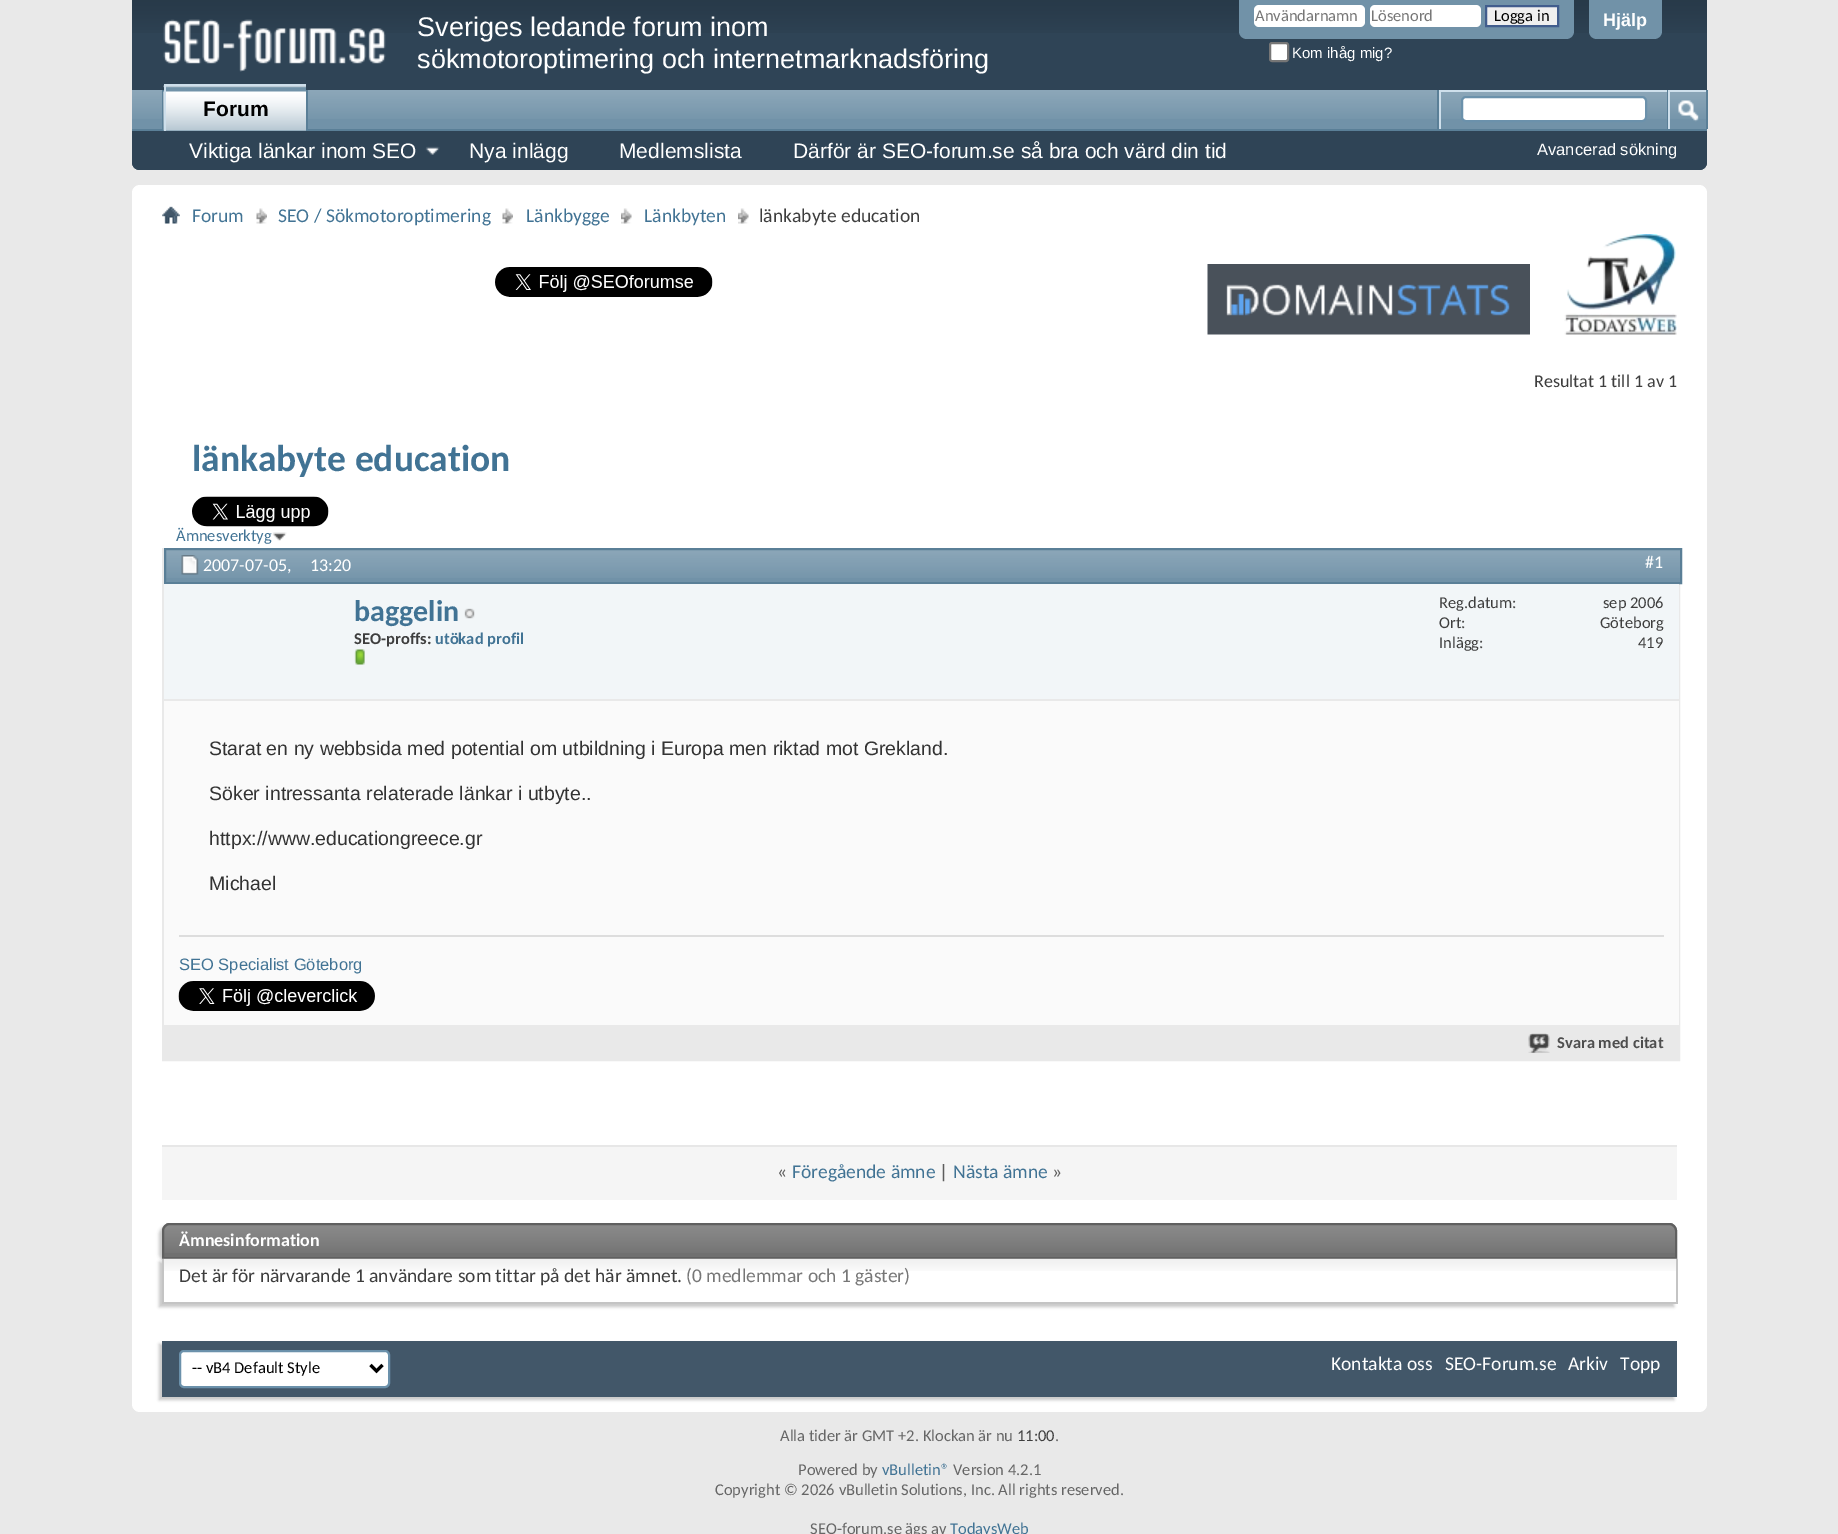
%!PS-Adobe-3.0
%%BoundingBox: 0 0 1838 1534
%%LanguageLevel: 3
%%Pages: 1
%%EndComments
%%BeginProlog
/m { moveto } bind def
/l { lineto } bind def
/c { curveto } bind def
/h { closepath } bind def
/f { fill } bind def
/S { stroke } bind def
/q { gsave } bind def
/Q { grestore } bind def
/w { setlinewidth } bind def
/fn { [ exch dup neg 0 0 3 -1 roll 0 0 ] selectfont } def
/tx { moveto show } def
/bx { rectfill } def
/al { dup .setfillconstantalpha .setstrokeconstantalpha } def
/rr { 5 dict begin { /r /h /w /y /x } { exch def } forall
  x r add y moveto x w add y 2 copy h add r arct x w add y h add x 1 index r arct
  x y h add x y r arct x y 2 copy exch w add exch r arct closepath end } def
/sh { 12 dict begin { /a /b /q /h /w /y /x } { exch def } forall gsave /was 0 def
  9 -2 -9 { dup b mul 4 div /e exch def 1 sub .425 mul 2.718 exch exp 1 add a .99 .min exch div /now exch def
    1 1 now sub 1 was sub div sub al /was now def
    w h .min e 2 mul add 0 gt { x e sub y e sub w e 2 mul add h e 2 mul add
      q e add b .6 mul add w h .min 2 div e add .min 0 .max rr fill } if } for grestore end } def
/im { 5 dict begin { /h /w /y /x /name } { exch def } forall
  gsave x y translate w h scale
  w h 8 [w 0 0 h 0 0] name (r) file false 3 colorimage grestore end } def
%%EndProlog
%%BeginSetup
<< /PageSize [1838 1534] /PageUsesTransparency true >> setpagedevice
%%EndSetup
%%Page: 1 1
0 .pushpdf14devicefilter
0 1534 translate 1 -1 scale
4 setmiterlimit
0.914 setgray
0 0 1838 1534 bx
0.184 0.267 0.337 setrgbcolor
132 0 m 1707 0 l 1707 162 l 1707 166.5 1703.5 170 1699 170 c 140 170 l 135.5 170 132 166.5 132 162 c h f
(image0.raw) 132 0 1575 33 im
(image1.raw) 163 19 223 53 im
/LiberationSans-Regular 27 fn
1 setgray
(Sveriges ledande forum inom) 417 36 tx
(sökmotoroptimering och internetmarknadsföring) 417 68 tx
0.443 0.573 0.659 setrgbcolor
1239 0 m 1574 0 l 1574 31 l 1574 35.5 1570.5 39 1566 39 c 1247 39 l 1242.5 39 1239 35.5 1239 31 c h f
1 setgray
1254 5 111 22 5 rr f
/Carlito-Regular 16.5 fn
0.467 setgray
(Användarnamn) 1255 21 tx
1 setgray
1370 5 111 22 5 rr f
0.467 setgray
(Lösenord) 1371 21 tx
0.937 setgray
1486 6 m 1558 6 l 1558 26 l 1486 26 l h q f Q
0.255 0.365 0.553 setrgbcolor
2 w
S
0 setgray
(Logga in) 1494 21 tx
1 setgray
1270 43 18 18 2 rr q f Q
0.463 setgray
S
/LiberationSans-Regular 15 fn
1 setgray
(Kom ihåg mig?) 1292 58 tx
0.443 0.573 0.659 setrgbcolor
1589 0 m 1662 0 l 1662 31 l 1662 35.5 1658.5 39 1654 39 c 1597 39 l 1592.5 39 1589 35.5 1589 31 c h f
/LiberationSans-Bold 18 fn
1 setgray
(Hjälp) 1603 26 tx
0.184 0.267 0.337 setrgbcolor
132 90 m 1707 90 l 1707 162 l 1707 166.5 1703.5 170 1699 170 c 140 170 l 135.5 170 132 166.5 132 162 c h f
0.443 0.573 0.659 setrgbcolor
132 90 1574 39 bx
(image2.raw) 132 90 1574 29 im
0.353 0.498 0.592 setrgbcolor
306 90 2 39 bx
162 90 2 39 bx
132 129 1575 2 bx
0.443 0.573 0.659 setrgbcolor
166 86 140 45 bx
(image3.raw) 163 85 143 46 im
0.808 0.875 0.922 setrgbcolor
164 84 142 2 bx
164 84 2 47 bx
/LiberationSans-Bold 21 fn
0 setgray
(Forum) 203 116 tx
/LiberationSans-Regular 21 fn
1 setgray
(Viktiga länkar inom SEO) 189 158 tx
(image4.raw) 425 146 15 9 im
(Nya inlägg) 469 158 tx
(Medlemslista) 619 158 tx
(Därför är SEO-forum.se så bra och värd din tid) 793 158 tx
0.353 0.498 0.592 setrgbcolor
1437 90 2 39 bx
0.808 0.875 0.922 setrgbcolor
1439 90 228 2 bx
1439 90 2 39 bx
1 setgray
1462 97 184 24 4 rr q f Q
0.42 0.569 0.671 setrgbcolor
S
0.353 0.498 0.592 setrgbcolor
1706 90 2 39 bx
1667 90 1 39 bx
0.808 0.875 0.922 setrgbcolor
1668 90 38 2 bx
1668 90 2 39 bx
(image5.raw) 1678 100 21 22 im
/LiberationSans-Regular 16.5 fn
1 setgray
(Avancerad sökning) 1537 155 tx
132 185 1575 1227 8 rr f
(image6.raw) 162 206 18 18 im
(image7.raw) 256 208 11 16 im
/Carlito-Regular 19.5 fn
0.255 0.451 0.58 setrgbcolor
(Forum) 192 222 tx
(image7.raw) 502 208 11 16 im
(SEO / Sökmotoroptimering) 278 222 tx
(image8.raw) 621 208 11 16 im
(Länkbygge) 526 222 tx
(image9.raw) 738 208 11 16 im
(Länkbyten) 644 222 tx
0.243 setgray
(länkabyte education) 759 222 tx
(image10.raw) 495 267 218 30 im
(image11.raw) 1207 264 323 71 im
(image12.raw) 1564 234 113 101 im
/Carlito-Regular 18 fn
(Resultat 1 till 1 av 1) 1534 387 tx
/Carlito-Bold 37.5 fn
0.255 0.451 0.58 setrgbcolor
(länkabyte education) 192 471 tx
(image13.raw) 192 496 137 31 im
/Carlito-Regular 16.5 fn
(Ämnesverktyg) 176 541 tx
(image14.raw) 272 532 15 9 im
0.914 setgray
163 549 1516 511 rectstroke
0.443 0.573 0.659 setrgbcolor
166 550 1514 32 bx
(image15.raw) 166 550 1514 28 im
0.353 0.498 0.592 setrgbcolor
165 549 1516 34 rectstroke
(image16.raw) 181 555 18 20 im
/Carlito-Regular 18 fn
1 setgray
(2007-07-05,) 203 571 tx
(13:20) 310 571 tx
(#1) 1645 568 tx
0.949 0.965 0.973 setrgbcolor
164 584 1515 115 bx
0.914 setgray
164 699 1515 2 bx
/Carlito-Bold 30 fn
0.255 0.451 0.58 setrgbcolor
(baggelin) 354 621 tx
(image17.raw) 464 608 11 11 im
/Carlito-Bold 16.5 fn
0.243 setgray
(SEO-proffs:) 354 644 tx
0.255 0.451 0.58 setrgbcolor
(utökad profil) 435 644 tx
(image18.raw) 354 649 11 16 im
/Carlito-Regular 16.5 fn
0.243 setgray
(Reg.datum:) 1439 608 tx
(sep 2006) 1603 608 tx
(Ort:) 1439 628 tx
(Göteborg) 1600 628 tx
(Inlägg:) 1439 648 tx
(419) 1638 648 tx
0.98 setgray
164 701 1515 324 bx
/LiberationSans-Regular 19.5 fn
0.2 setgray
(Starat en ny webbsida med potential om utbildning i Europa men riktad mot Grekland.) 209 755 tx
(Söker intressanta relaterade länkar i utbyte..) 209 800 tx
(httpx://www.educationgreece.gr) 209 845 tx
(Michael) 209 890 tx
0.867 setgray
179 935 1485 2 bx
/LiberationSans-Regular 16.5 fn
0.255 0.451 0.58 setrgbcolor
(SEO Specialist Göteborg) 179 970 tx
(image19.raw) 178 981 197 30 im
0.914 setgray
164 1025 1514 34 bx
(image20.raw) 1528 1033 22 20 im
/Carlito-Bold 16.5 fn
0.306 setgray
(Svara med citat) 1557 1048 tx
0.961 setgray
162 1147 1515 53 bx
0.906 setgray
162 1145 1515 2 bx
/Carlito-Regular 19.5 fn
0.365 setgray
(«) 777 1178 tx
0.255 0.451 0.58 setrgbcolor
(Föregående ämne) 792 1178 tx
0.365 setgray
(|) 939 1178 tx
0.255 0.451 0.58 setrgbcolor
(Nästa ämne) 953 1178 tx
0.365 setgray
(») 1052 1178 tx
0.784 setgray
159 1226 1515 36 8 1.5 1 sh
0.439 setgray
170 1223 m 1669 1223 l 1673.5 1223 1677 1226.5 1677 1231 c 1677 1259 l 162 1259 l 162 1231 l 162 1226.5 165.5 1223 170 1223 c h f
(image21.raw) 162 1224 1515 29 im
0.376 setgray
170 1224 m 1669 1224 l 1673 1224 1676 1227 1676 1231 c 1676 1258 l 163 1258 l 163 1231 l 163 1227 166 1224 170 1224 c h S
/Carlito-Bold 18 fn
1 setgray
(Ämnesinformation) 179 1246 tx
0.784 setgray
159 1262 1515 45 0 1.5 1 sh
1 setgray
164 1259 1512 43 bx
(image22.raw) 162 1258 1515 13 im
0.769 setgray
1676 1259 2 45 bx
162 1302 1515 2 bx
162 1259 2 45 bx
/Carlito-Regular 19.5 fn
0.243 setgray
(Det är för närvarande 1 användare som tittar på det här ämnet.) 179 1282 tx
0.467 setgray
(\(0 medlemmar och 1 gäster\)) 686 1282 tx
0.784 setgray
159 1344 1515 56 0 1.5 1 sh
0.259 0.341 0.412 setrgbcolor
162 1341 1515 56 bx
1 setgray
180 1351 209 36 4 rr q f Q
0.42 0.569 0.671 setrgbcolor
S
0 setgray
3 w
370.5 1365 m 376.5 1371 l 382.5 1365 l S
/Carlito-Regular 16.5 fn
(-- vB4 Default Style) 192 1373 tx
/Carlito-Regular 19.5 fn
1 setgray
(Kontakta oss) 1331 1370 tx
(SEO-Forum.se) 1445 1370 tx
(Arkiv) 1568 1370 tx
(Topp) 1620 1370 tx
/Carlito-Regular 16.5 fn
0.4 setgray
(Alla tider är GMT +2. Klockan är nu) 780 1441 tx
0.243 setgray
(11:00) 1017 1441 tx
0.4 setgray
(.) 1055 1441 tx
(Powered by) 798 1475 tx
0.255 0.451 0.58 setrgbcolor
(vBulletin®) 882 1475 tx
0.4 setgray
(Version 4.2.1) 953 1475 tx
(Copyright © 2026 vBulletin Solutions, Inc. All rights reserved.) 715 1495 tx
(SEO-forum.se ägs av) 810 1534 tx
0.255 0.451 0.58 setrgbcolor
(TodaysWeb) 950 1534 tx
.poppdf14devicefilter showpage
%%EOF
